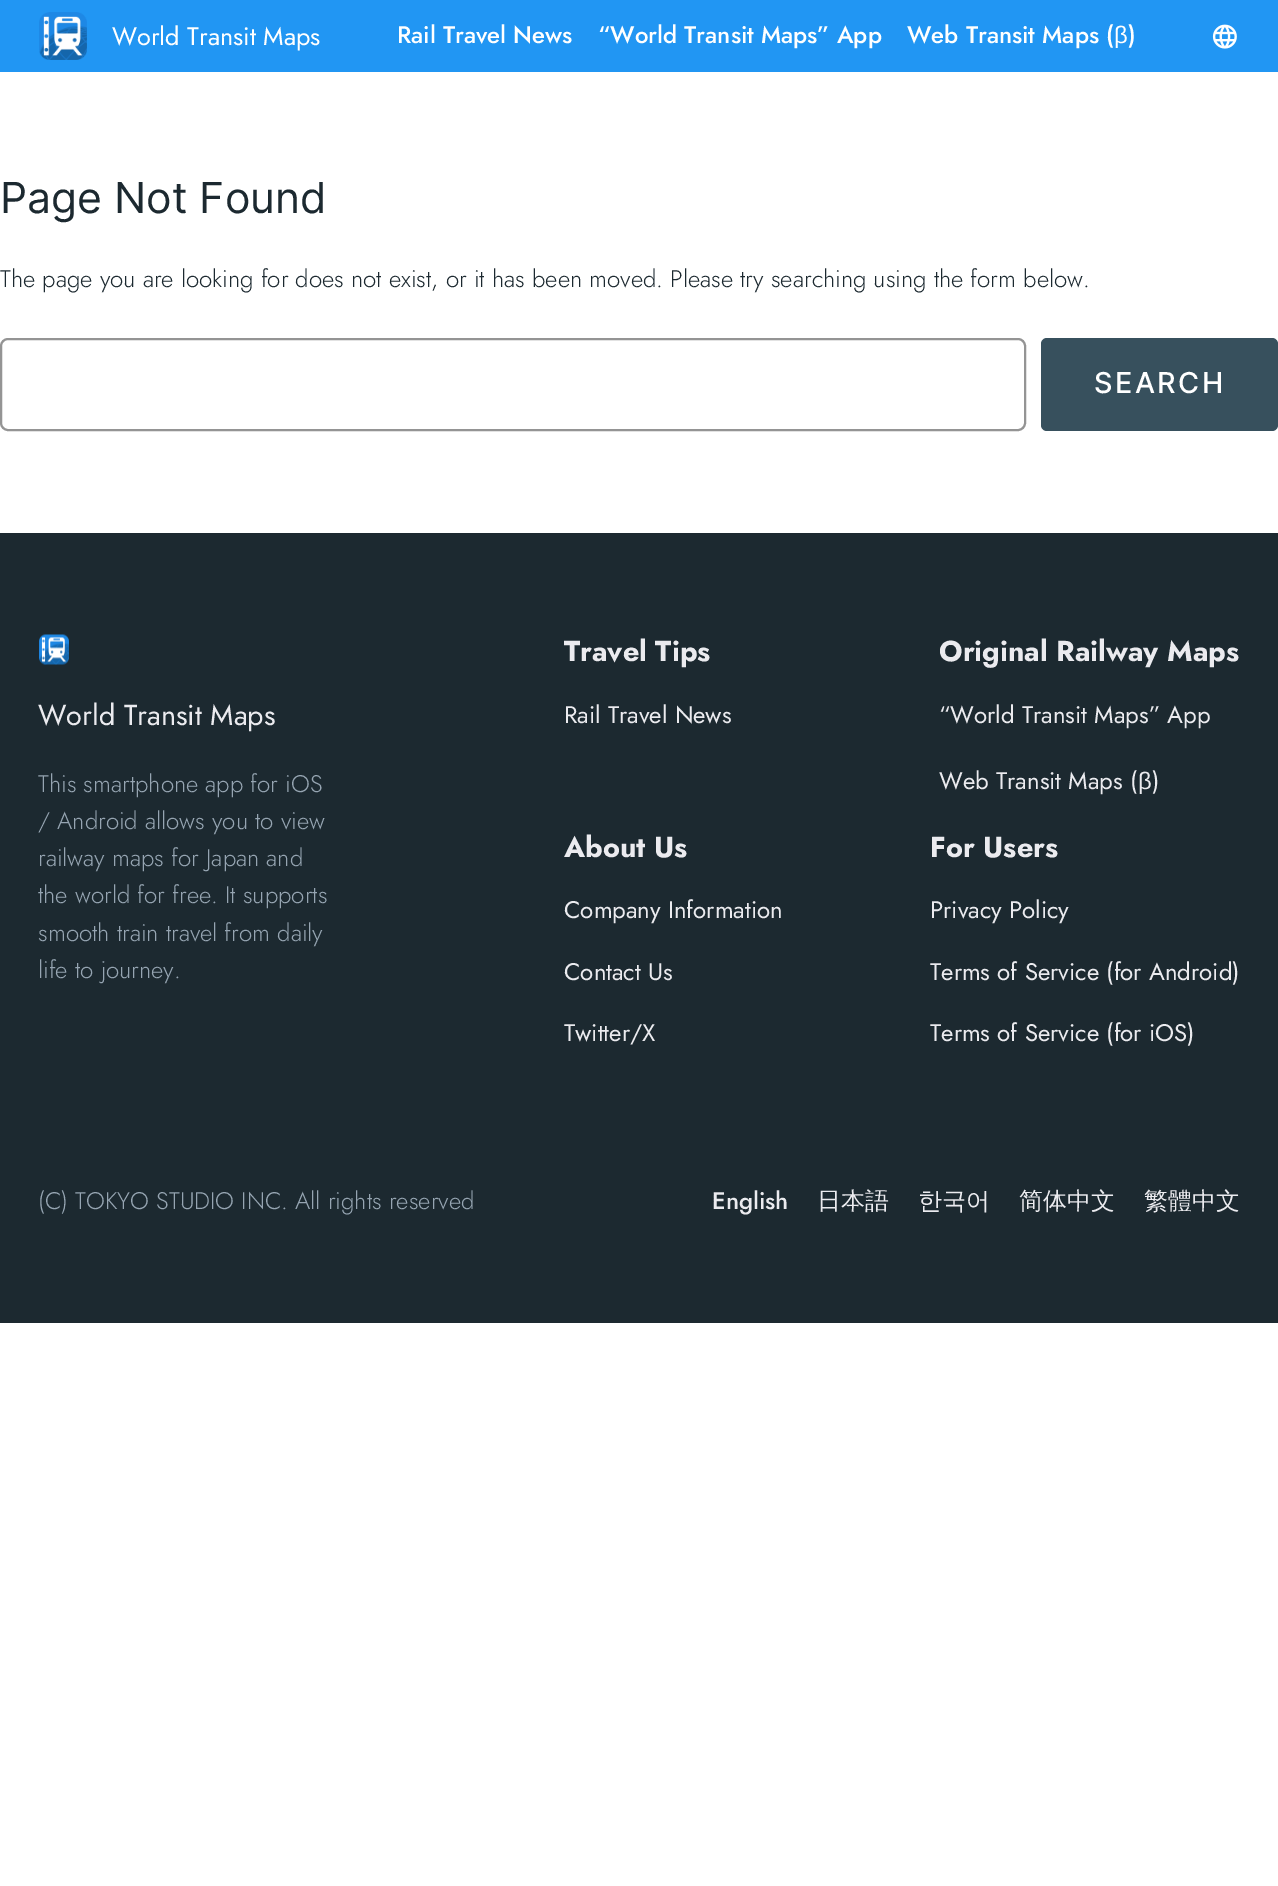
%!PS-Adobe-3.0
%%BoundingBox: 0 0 1278 1886
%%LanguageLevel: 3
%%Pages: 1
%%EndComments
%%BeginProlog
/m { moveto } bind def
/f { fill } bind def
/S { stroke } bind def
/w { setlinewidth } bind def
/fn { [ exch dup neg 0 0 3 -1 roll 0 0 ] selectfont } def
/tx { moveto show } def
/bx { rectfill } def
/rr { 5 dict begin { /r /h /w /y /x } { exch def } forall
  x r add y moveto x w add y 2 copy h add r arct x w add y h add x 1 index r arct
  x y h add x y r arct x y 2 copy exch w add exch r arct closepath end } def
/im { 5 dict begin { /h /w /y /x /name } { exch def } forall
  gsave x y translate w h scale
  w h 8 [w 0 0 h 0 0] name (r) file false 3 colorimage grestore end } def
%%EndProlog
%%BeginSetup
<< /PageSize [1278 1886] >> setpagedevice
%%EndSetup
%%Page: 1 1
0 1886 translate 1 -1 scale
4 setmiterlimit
1 setgray
0 0 1278 1886 bx
0.129 0.588 0.953 setrgbcolor
0 0 1278 72 bx
(image0.raw) 39 12 48 48 im
/Jost-Regular 25.25 fn
1 setgray
(World Transit Maps) 112 45 tx
/Jost-Medium 24 fn
(Rail Travel News) 397 43 tx
(“World Transit Maps” App) 598 43 tx
(Web Transit Maps \() 907 43 tx
/LiberationSans-Regular 24 fn
(β) 1114 43 tx
/Jost-Medium 24 fn
(\)) 1128 43 tx
(image1.raw) 1212 24 25 25 im
/Inter-Regular 42.75 fn
0.11 0.161 0.188 setrgbcolor
(Page Not Found) 0 213 tx
/Jost-Light 24 fn
(The page you are looking for does not exist, or it has been moved. Please try searching using the form below.) 0 287 tx
0.58 setgray
2 w
1 339 1024 91 7 rr S
0.216 0.314 0.365 setrgbcolor
1041 338 237 93 6 rr f
/Inter-Medium 28.75 fn
1 setgray
1094 393 m 2.5 0 (SEARCH) ashow
0.11 0.161 0.188 setrgbcolor
0 533 1278 790 bx
(image2.raw) 39 634 30 31 im
/Jost-Regular 28.75 fn
0.922 0.922 0.937 setrgbcolor
(World Transit Maps) 38 725 tx
/Jost-Light 24 fn
0.588 0.647 0.698 setrgbcolor
(This smartphone app for iOS) 38 792 tx
(/ Android allows you to view) 38 829 tx
(railway maps for Japan and) 38 866 tx
(the world for free. It supports) 38 903 tx
(smooth train travel from daily) 38 941 tx
(life to journey.) 38 978 tx
/Jost-Bold 28.75 fn
0.922 0.922 0.937 setrgbcolor
(Travel Tips) 564 661 tx
/Jost-Regular 24 fn
(Rail Travel News) 564 723 tx
/Jost-Bold 28.75 fn
(Original Railway Maps) 939 661 tx
/Jost-Regular 24 fn
(“World Transit Maps” App) 939 723 tx
(Web Transit Maps \() 939 789 tx
/LiberationSans-Regular 24 fn
(β) 1138 789 tx
/Jost-Regular 24 fn
(\)) 1152 789 tx
/Jost-Bold 28.75 fn
(About Us) 564 857 tx
/Jost-Regular 24 fn
(Company Information) 564 918 tx
(Contact Us) 564 980 tx
(Twitter/X) 564 1041 tx
/Jost-Bold 28.75 fn
(For Users) 930 857 tx
/Jost-Regular 24 fn
(Privacy Policy) 930 918 tx
(Terms of Service \(for Android\)) 930 980 tx
(Terms of Service \(for iOS\)) 930 1041 tx
/Jost-Light 24 fn
0.588 0.647 0.698 setrgbcolor
(\(C\) TOKYO STUDIO INC. All rights reserved) 38 1209 tx
/Jost-Medium 24 fn
0.922 0.922 0.937 setrgbcolor
(English) 712 1209 tx
/WenQuanYiZenHei-Medium 24 fn
(日本語) 817 1209 tx
(한국어) 918 1209 tx
(简体中文) 1019 1209 tx
(繁體中文) 1144 1209 tx
showpage
%%EOF
